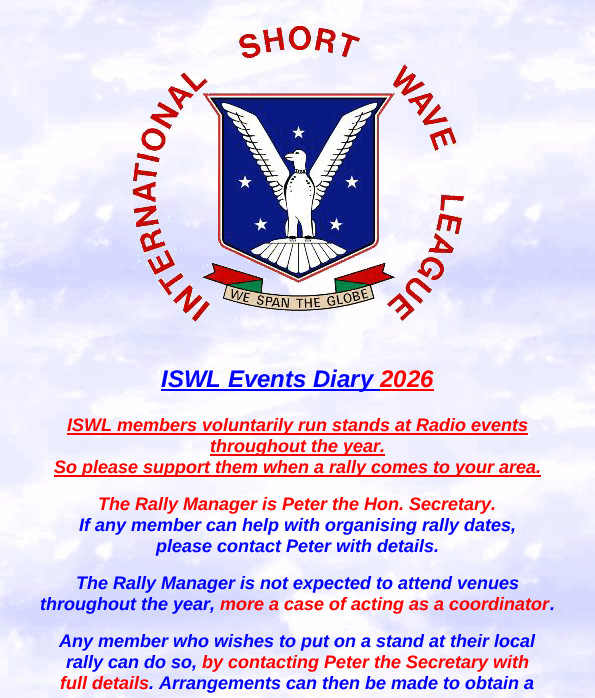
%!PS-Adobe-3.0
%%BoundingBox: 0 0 595 698
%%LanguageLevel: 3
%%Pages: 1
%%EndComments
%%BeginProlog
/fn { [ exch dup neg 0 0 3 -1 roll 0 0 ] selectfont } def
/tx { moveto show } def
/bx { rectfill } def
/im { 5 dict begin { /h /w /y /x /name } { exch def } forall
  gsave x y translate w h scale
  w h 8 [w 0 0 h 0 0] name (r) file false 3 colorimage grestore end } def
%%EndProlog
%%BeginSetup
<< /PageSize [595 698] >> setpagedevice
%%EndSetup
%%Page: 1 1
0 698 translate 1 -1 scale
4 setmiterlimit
1 setgray
0 0 595 698 bx
(image0.raw) 0 0 595 698 im
(image1.raw) 131 25 335 301 im
0 0 1 setrgbcolor
161 389 219 2 bx
/LiberationSans-BoldItalic 24 fn
(ISWL Events Diary) 161 387 tx
1 0 0 setrgbcolor
(2026) 380 387 tx
380 389 54 2 bx
67 433 461 2 bx
/LiberationSans-BoldItalic 18 fn
(ISWL members voluntarily run stands at Radio events) 67 431 tx
210 454 175 2 bx
(throughout the year.) 210 452 tx
54 475 487 2 bx
(So please support them when a rally comes to your area.) 54 473 tx
(The Rally Manager is Peter the Hon. Secretary.) 98 510 tx
0 0 1 setrgbcolor
(If any member can help with organising rally dates,) 79 531 tx
(please contact Peter with details.) 156 552 tx
(The Rally Manager is not expected to attend venues) 76 589 tx
(throughout the year,) 40 610 tx
1 0 0 setrgbcolor
(more a case of acting as a coordinator) 220 610 tx
0 0 1 setrgbcolor
(.) 550 610 tx
(Any member who wishes to put on a stand at their local) 59 647 tx
(rally can do so,) 66 668 tx
1 0 0 setrgbcolor
(by contacting Peter the Secretary with) 202 668 tx
(full details) 60 689 tx
0 0 1 setrgbcolor
(. Arrangements can then be made to obtain a) 149 689 tx
showpage
%%EOF
